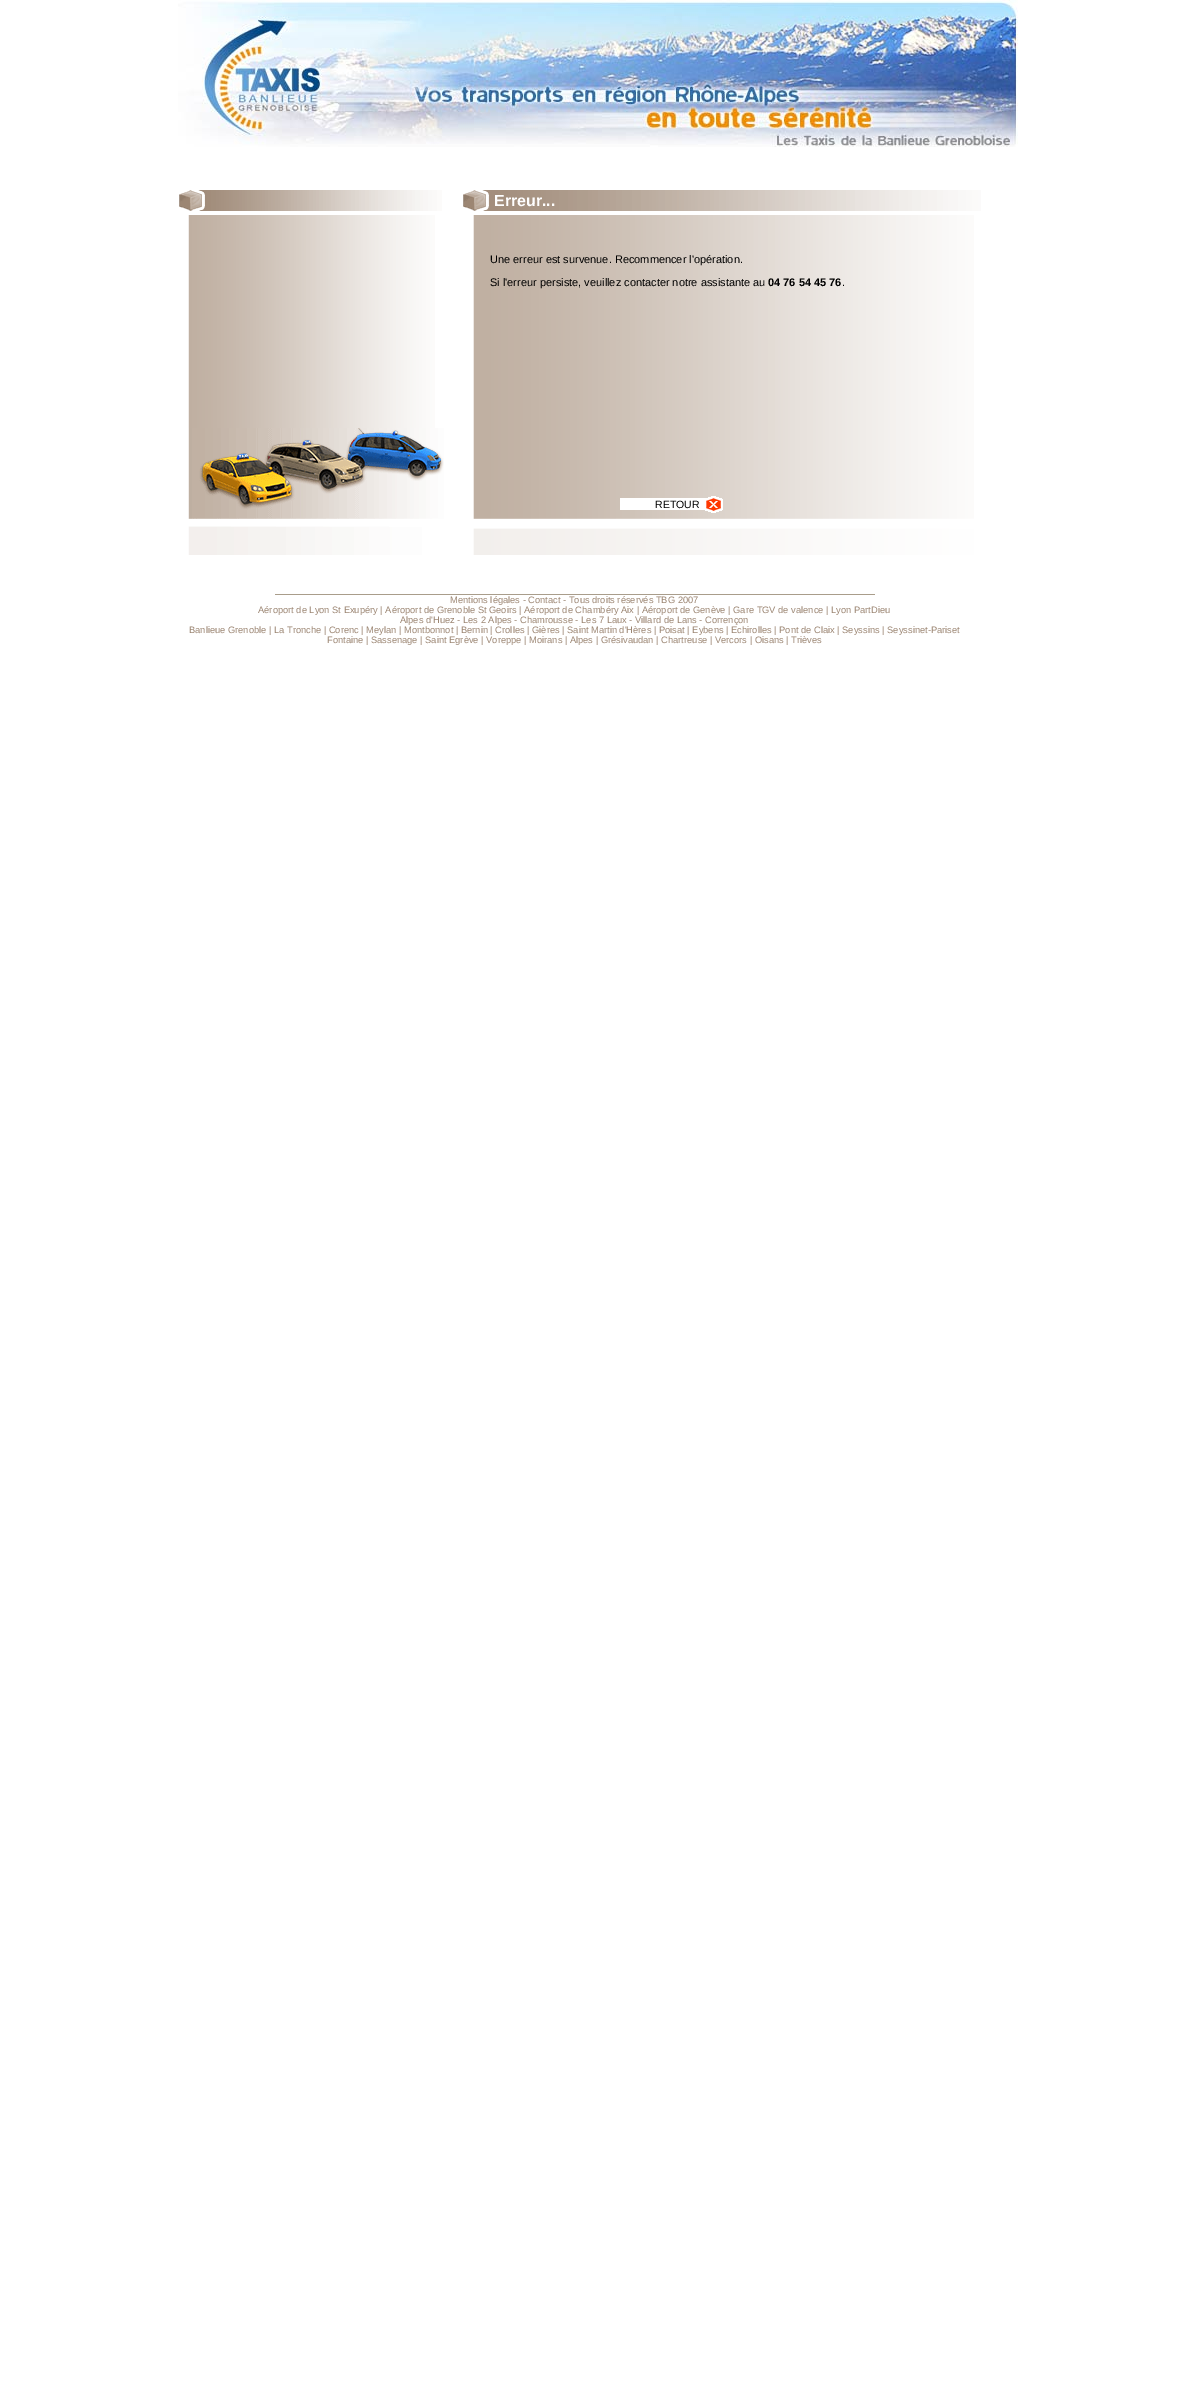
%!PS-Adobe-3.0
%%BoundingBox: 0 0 1188 2405
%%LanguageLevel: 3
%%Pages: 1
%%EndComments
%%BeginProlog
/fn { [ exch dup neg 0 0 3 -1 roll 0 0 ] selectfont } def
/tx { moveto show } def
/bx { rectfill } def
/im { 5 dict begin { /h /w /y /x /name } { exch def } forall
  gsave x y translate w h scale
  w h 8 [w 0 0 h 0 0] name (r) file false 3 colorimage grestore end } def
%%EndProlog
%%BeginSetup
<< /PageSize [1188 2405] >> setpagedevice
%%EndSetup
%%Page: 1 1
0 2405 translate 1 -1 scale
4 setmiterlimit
1 setgray
0 0 1188 2405 bx
(image0.raw) 178 0 840 147 im
(image1.raw) 179 190 263 21 im
(image2.raw) 463 190 518 21 im
/LiberationSans-Bold 16 fn
(Erreur...) 494 206 tx
(image3.raw) 473 215 501 303 im
/LiberationSans-Regular 11 fn
0 setgray
(Une erreur est survenue. Recommencer l'opération.) 490 263 tx
(Si l'erreur persiste, veuillez contacter notre assistante au) 490 286 tx
/LiberationSans-Bold 11 fn
(04 76 54 45 76) 768 286 tx
/LiberationSans-Regular 11 fn
(.) 842 286 tx
(image4.raw) 620 496 103 17 im
/LiberationSans-Regular 10.5 fn
(RETOUR) 655 508 tx
(image5.raw) 473 518 501 37 im
(image6.raw) 188 215 247 213 im
(image7.raw) 188 428 256 127 im
0.663 0.616 0.545 setrgbcolor
275 594 600 1 bx
/LiberationSans-Regular 9.33 fn
0.612 0.525 0.451 setrgbcolor
(Mentions légales - Contact - Tous droits réservés TBG 2007) 450 603 tx
(Aéroport de Lyon St Exupéry | Aéroport de Grenoble St Geoirs | Aéroport de Chambéry Aix | Aéroport de Genève | Gare TGV de valence | Lyon PartDieu) 258 613 tx
(Alpes d'Huez - Les 2 Alpes - Chamrousse - Les 7 Laux - Villard de Lans - Corrençon) 400 623 tx
(Banlieue Grenoble | La Tronche | Corenc | Meylan | Montbonnot | Bernin | Crolles | Gières | Saint Martin d'Hères | Poisat | Eybens | Echirolles | Pont de Claix | Seyssins | Seyssinet-Pariset) 189 633 tx
(Fontaine | Sassenage | Saint Egrève | Voreppe | Moirans | Alpes | Grésivaudan | Chartreuse | Vercors | Oisans | Trièves) 327 643 tx
showpage
%%EOF
